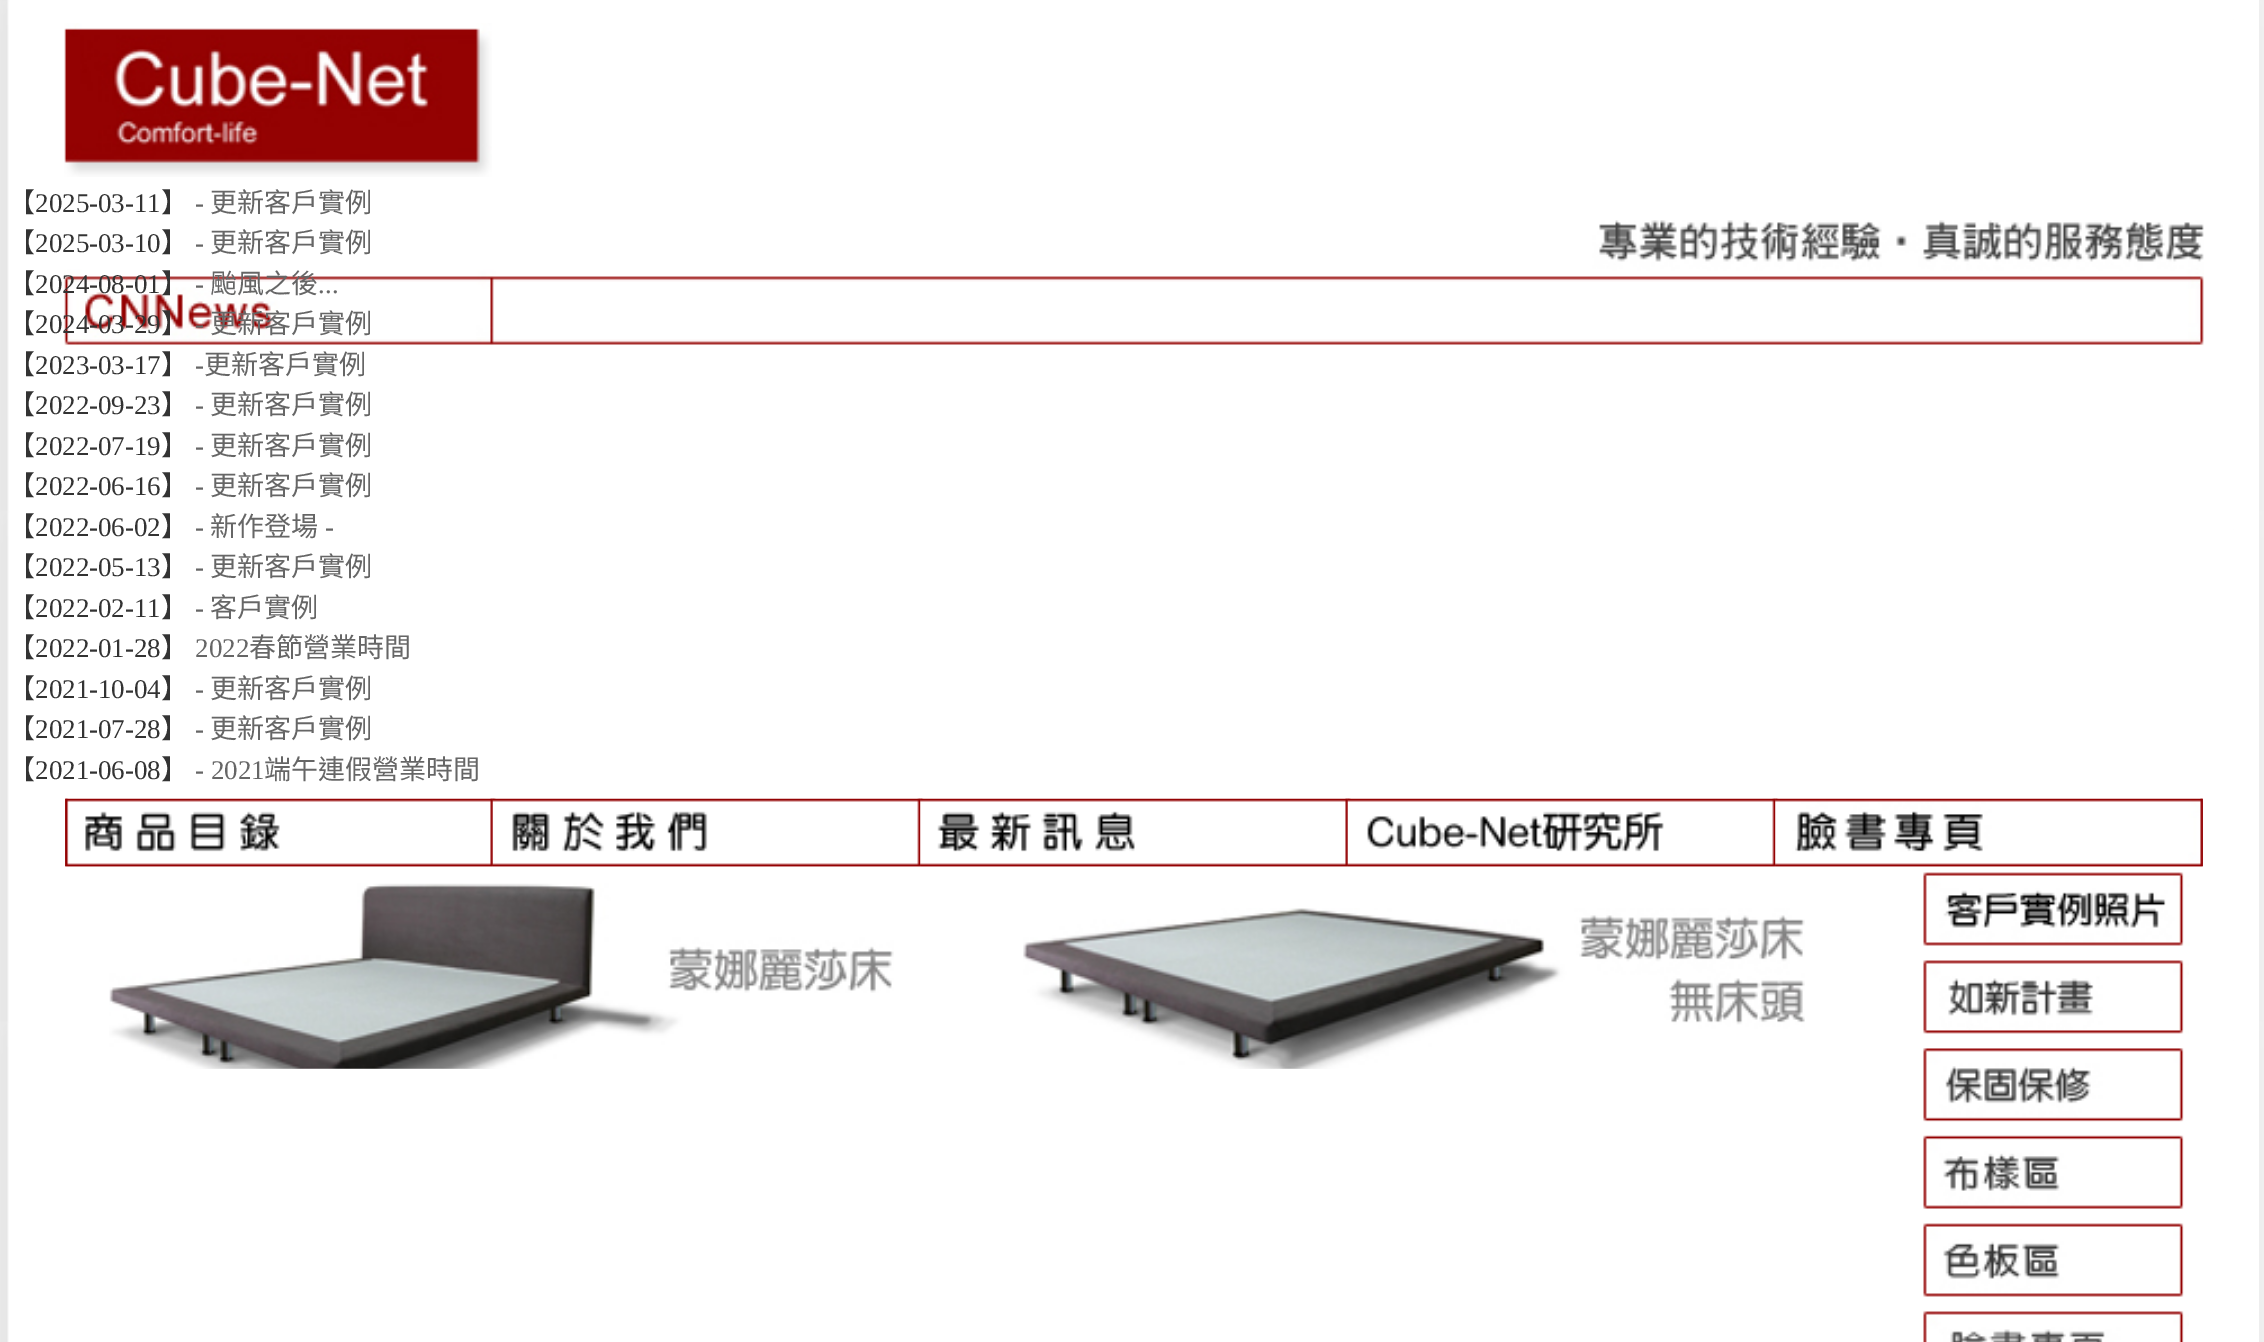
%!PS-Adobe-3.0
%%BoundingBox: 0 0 2264 1342
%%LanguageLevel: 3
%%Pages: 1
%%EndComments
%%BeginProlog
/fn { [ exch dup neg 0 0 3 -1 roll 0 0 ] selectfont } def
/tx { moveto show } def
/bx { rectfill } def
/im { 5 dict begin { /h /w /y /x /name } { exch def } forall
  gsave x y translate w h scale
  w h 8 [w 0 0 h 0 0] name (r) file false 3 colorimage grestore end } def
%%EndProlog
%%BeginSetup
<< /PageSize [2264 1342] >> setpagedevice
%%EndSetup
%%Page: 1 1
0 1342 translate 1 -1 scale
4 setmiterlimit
1 setgray
0 0 2264 1342 bx
(image0.raw) 0 0 2264 1342 im
2234 0 25 1342 bx
(image1.raw) 64 23 428 154 im
(image2.raw) 64 220 2140 126 im
/NotoSansCJKTC-Regular 27 fn
0.2 setgray
(【) 8 212 tx
/LiberationSerif-Regular 27 fn
(2025-03-11) 35 212 tx
/NotoSansCJKTC-Regular 27 fn
(】) 161 212 tx
/LiberationSerif-Regular 27 fn
0.4 setgray
(-) 195 212 tx
/NotoSansCJKTC-Regular 27 fn
(更新客戶實例) 210 212 tx
0.2 setgray
(【) 8 252 tx
/LiberationSerif-Regular 27 fn
(2025-03-10) 35 252 tx
/NotoSansCJKTC-Regular 27 fn
(】) 161 252 tx
/LiberationSerif-Regular 27 fn
0.4 setgray
(-) 195 252 tx
/NotoSansCJKTC-Regular 27 fn
(更新客戶實例) 210 252 tx
0.2 setgray
(【) 8 293 tx
/LiberationSerif-Regular 27 fn
(2024-08-01) 35 293 tx
/NotoSansCJKTC-Regular 27 fn
(】) 161 293 tx
/LiberationSerif-Regular 27 fn
0.4 setgray
(-) 195 293 tx
/NotoSansCJKTC-Regular 27 fn
(颱風之後) 210 293 tx
/LiberationSerif-Regular 27 fn
(...) 318 293 tx
/NotoSansCJKTC-Regular 27 fn
0.2 setgray
(【) 8 333 tx
/LiberationSerif-Regular 27 fn
(2024-03-29) 35 333 tx
/NotoSansCJKTC-Regular 27 fn
(】) 161 333 tx
/LiberationSerif-Regular 27 fn
0.4 setgray
(-) 195 333 tx
/NotoSansCJKTC-Regular 27 fn
(更新客戶實例) 210 333 tx
0.2 setgray
(【) 8 374 tx
/LiberationSerif-Regular 27 fn
(2023-03-17) 35 374 tx
/NotoSansCJKTC-Regular 27 fn
(】) 161 374 tx
/LiberationSerif-Regular 27 fn
0.4 setgray
(-) 195 374 tx
/NotoSansCJKTC-Regular 27 fn
(更新客戶實例) 204 374 tx
0.2 setgray
(【) 8 414 tx
/LiberationSerif-Regular 27 fn
(2022-09-23) 35 414 tx
/NotoSansCJKTC-Regular 27 fn
(】) 161 414 tx
/LiberationSerif-Regular 27 fn
0.4 setgray
(-) 195 414 tx
/NotoSansCJKTC-Regular 27 fn
(更新客戶實例) 210 414 tx
0.2 setgray
(【) 8 455 tx
/LiberationSerif-Regular 27 fn
(2022-07-19) 35 455 tx
/NotoSansCJKTC-Regular 27 fn
(】) 161 455 tx
/LiberationSerif-Regular 27 fn
0.4 setgray
(-) 195 455 tx
/NotoSansCJKTC-Regular 27 fn
(更新客戶實例) 210 455 tx
0.2 setgray
(【) 8 495 tx
/LiberationSerif-Regular 27 fn
(2022-06-16) 35 495 tx
/NotoSansCJKTC-Regular 27 fn
(】) 161 495 tx
/LiberationSerif-Regular 27 fn
0.4 setgray
(-) 195 495 tx
/NotoSansCJKTC-Regular 27 fn
(更新客戶實例) 210 495 tx
0.2 setgray
(【) 8 536 tx
/LiberationSerif-Regular 27 fn
(2022-06-02) 35 536 tx
/NotoSansCJKTC-Regular 27 fn
(】) 161 536 tx
/LiberationSerif-Regular 27 fn
0.4 setgray
(-) 195 536 tx
/NotoSansCJKTC-Regular 27 fn
(新作登場) 210 536 tx
/LiberationSerif-Regular 27 fn
(-) 325 536 tx
/NotoSansCJKTC-Regular 27 fn
0.2 setgray
(【) 8 576 tx
/LiberationSerif-Regular 27 fn
(2022-05-13) 35 576 tx
/NotoSansCJKTC-Regular 27 fn
(】) 161 576 tx
/LiberationSerif-Regular 27 fn
0.4 setgray
(-) 195 576 tx
/NotoSansCJKTC-Regular 27 fn
(更新客戶實例) 210 576 tx
0.2 setgray
(【) 8 617 tx
/LiberationSerif-Regular 27 fn
(2022-02-11) 35 617 tx
/NotoSansCJKTC-Regular 27 fn
(】) 161 617 tx
/LiberationSerif-Regular 27 fn
0.4 setgray
(-) 195 617 tx
/NotoSansCJKTC-Regular 27 fn
(客戶實例) 210 617 tx
0.2 setgray
(【) 8 657 tx
/LiberationSerif-Regular 27 fn
(2022-01-28) 35 657 tx
/NotoSansCJKTC-Regular 27 fn
(】) 161 657 tx
/LiberationSerif-Regular 27 fn
0.4 setgray
(2022) 195 657 tx
/NotoSansCJKTC-Regular 27 fn
(春節營業時間) 249 657 tx
0.2 setgray
(【) 8 698 tx
/LiberationSerif-Regular 27 fn
(2021-10-04) 35 698 tx
/NotoSansCJKTC-Regular 27 fn
(】) 161 698 tx
/LiberationSerif-Regular 27 fn
0.4 setgray
(-) 195 698 tx
/NotoSansCJKTC-Regular 27 fn
(更新客戶實例) 210 698 tx
0.2 setgray
(【) 8 738 tx
/LiberationSerif-Regular 27 fn
(2021-07-28) 35 738 tx
/NotoSansCJKTC-Regular 27 fn
(】) 161 738 tx
/LiberationSerif-Regular 27 fn
0.4 setgray
(-) 195 738 tx
/NotoSansCJKTC-Regular 27 fn
(更新客戶實例) 210 738 tx
0.2 setgray
(【) 8 779 tx
/LiberationSerif-Regular 27 fn
(2021-06-08) 35 779 tx
/NotoSansCJKTC-Regular 27 fn
(】) 161 779 tx
/LiberationSerif-Regular 27 fn
0.4 setgray
(- 2021) 195 779 tx
/NotoSansCJKTC-Regular 27 fn
(端午連假營業時間) 264 779 tx
(image3.raw) 65 798 428 69 im
(image4.raw) 65 798 428 69 im
(image5.raw) 492 798 429 69 im
(image6.raw) 492 798 429 69 im
(image7.raw) 920 798 428 69 im
(image8.raw) 920 798 428 69 im
(image5.raw) 1347 798 429 69 im
(image9.raw) 1347 798 429 69 im
(image7.raw) 1775 798 428 69 im
(image10.raw) 1775 798 428 69 im
(image11.raw) 109 883 785 186 im
(image12.raw) 1023 908 782 161 im
(image13.raw) 1923 872 267 74 im
(image14.raw) 1923 960 266 74 im
(image15.raw) 1923 1048 261 74 im
(image16.raw) 1923 1135 261 74 im
(image17.raw) 1923 1223 261 74 im
(image18.raw) 1923 1310 266 32 im
showpage
%%EOF
